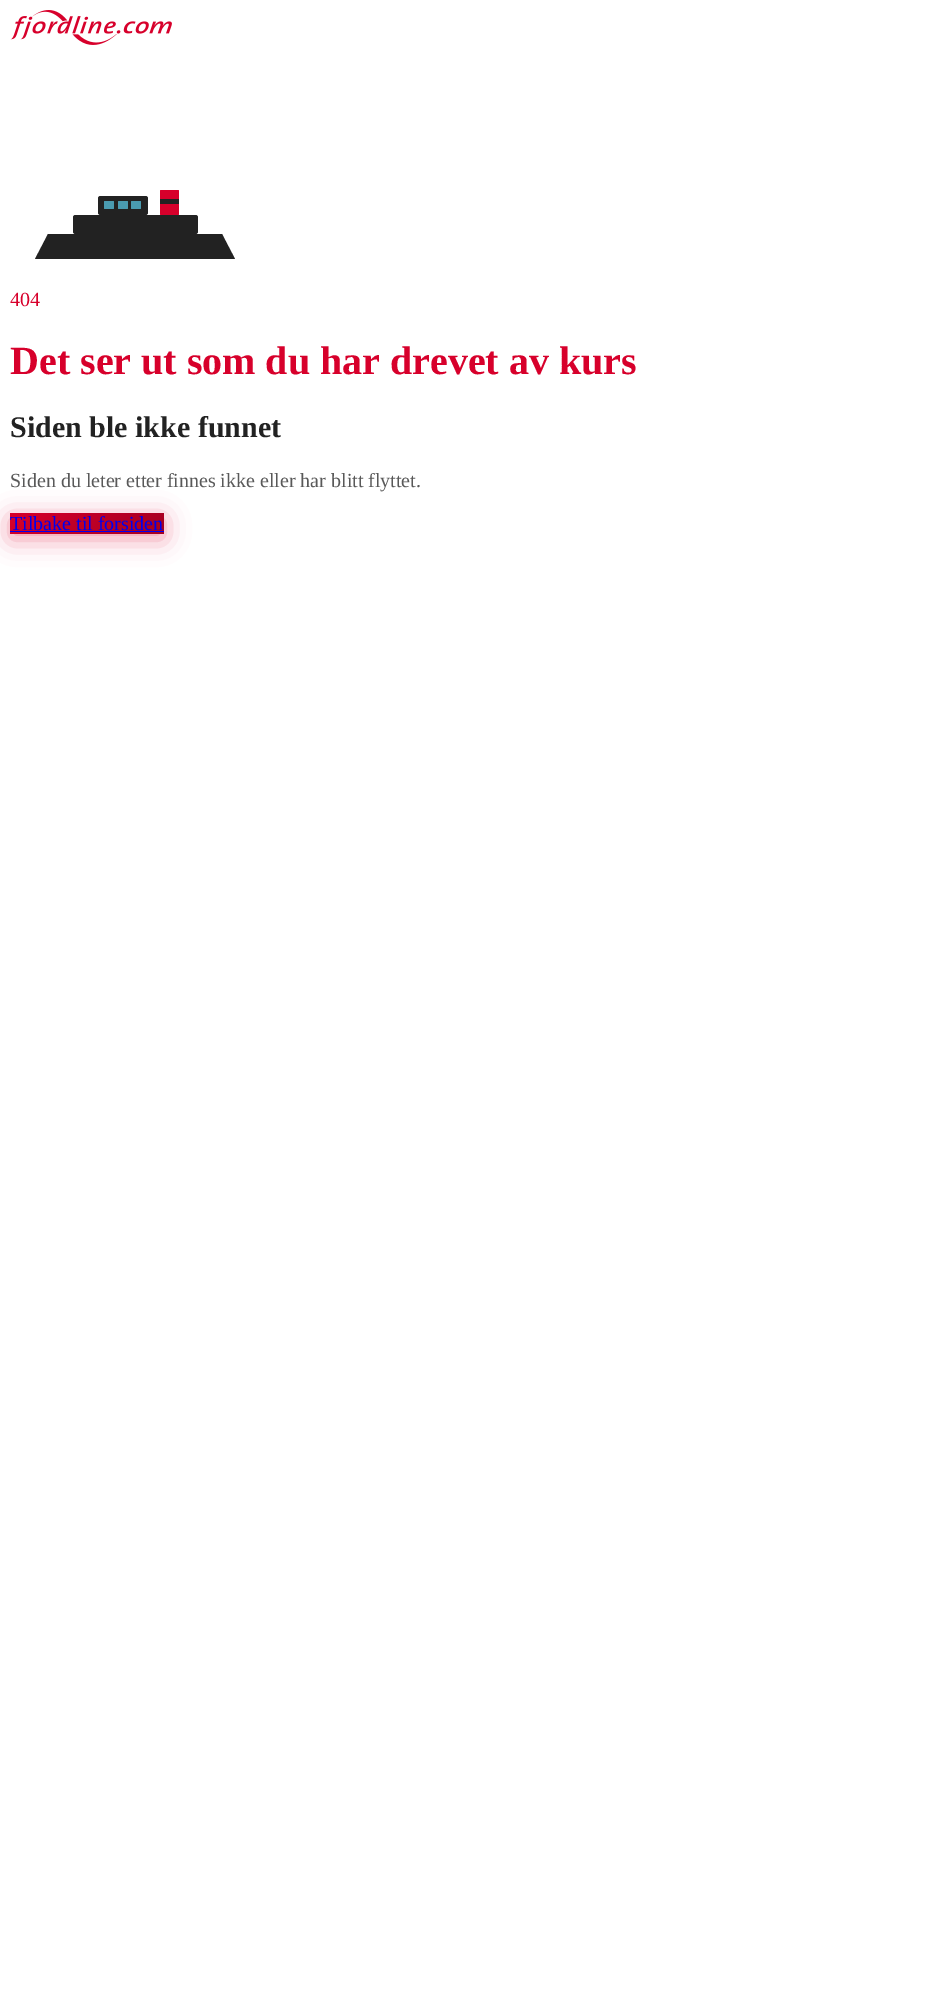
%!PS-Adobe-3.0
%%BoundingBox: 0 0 949 1999
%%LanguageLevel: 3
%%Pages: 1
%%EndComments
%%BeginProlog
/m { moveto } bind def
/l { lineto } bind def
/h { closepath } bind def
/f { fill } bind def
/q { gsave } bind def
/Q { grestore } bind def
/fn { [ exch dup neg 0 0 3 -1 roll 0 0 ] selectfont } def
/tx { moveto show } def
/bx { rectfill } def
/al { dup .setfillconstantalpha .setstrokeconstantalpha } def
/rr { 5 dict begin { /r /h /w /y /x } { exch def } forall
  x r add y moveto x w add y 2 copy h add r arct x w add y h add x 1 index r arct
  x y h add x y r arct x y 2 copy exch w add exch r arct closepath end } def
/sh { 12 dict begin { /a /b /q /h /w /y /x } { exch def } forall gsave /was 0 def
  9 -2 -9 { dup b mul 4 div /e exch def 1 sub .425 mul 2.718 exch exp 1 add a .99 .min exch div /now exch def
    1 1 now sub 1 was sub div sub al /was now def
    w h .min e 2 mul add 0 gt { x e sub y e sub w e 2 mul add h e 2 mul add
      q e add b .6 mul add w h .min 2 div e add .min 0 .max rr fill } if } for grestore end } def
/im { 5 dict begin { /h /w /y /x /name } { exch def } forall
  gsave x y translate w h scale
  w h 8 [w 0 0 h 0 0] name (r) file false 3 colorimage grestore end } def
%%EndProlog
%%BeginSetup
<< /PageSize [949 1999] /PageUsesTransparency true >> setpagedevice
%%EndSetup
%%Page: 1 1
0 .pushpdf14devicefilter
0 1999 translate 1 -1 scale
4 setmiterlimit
1 setgray
0 0 949 1999 bx
(image0.raw) 10 10 162 35 im
0.133 setgray
98 196 50 19 2.5 rr f
0.843 0 0.169 setrgbcolor
160 190 19 25 1 rr f
0.29 0.608 0.69 setrgbcolor
104 201 10 8 1 rr f
118 201 10 8 1 rr f
131 201 10 8 1 rr f
0.133 setgray
160 199 19 5 bx
73 215 125 19 2.5 rr f
35 259 m 48 234 l 222 234 l 235 259 l h f
/LiberationSerif-Regular 20 fn
0.843 0 0.169 setrgbcolor
(404) 10 306 tx
/LiberationSerif-Bold 40 fn
(Det ser ut som du har drevet av kurs) 10 374 tx
/LiberationSerif-Bold 30 fn
0.133 setgray
(Siden ble ikke funnet) 10 437 tx
/LiberationSerif-Regular 20 fn
0.349 setgray
(Siden du leter etter finnes ikke eller har blitt flyttet.) 10 487 tx
0.843 0 0.169 setrgbcolor
10 518 154 21 0 12.5 0.4 sh
q 10 513 m 164 513 l 164 534 l 10 534 l h clip newpath
<< /ShadingType 2 /ColorSpace /DeviceRGB /Coords [43 479 131 567] /Extend [true true] /Function << /FunctionType 2 /Domain [0 1] /C0 [0.843 0 0.169] /C1 [0.647 0 0.133] /N 1 >> >> shfill Q
0 0 0.933 setrgbcolor
(Tilbake til forsiden) 10 530 tx
10 531 154 1 bx
.poppdf14devicefilter showpage
%%EOF
